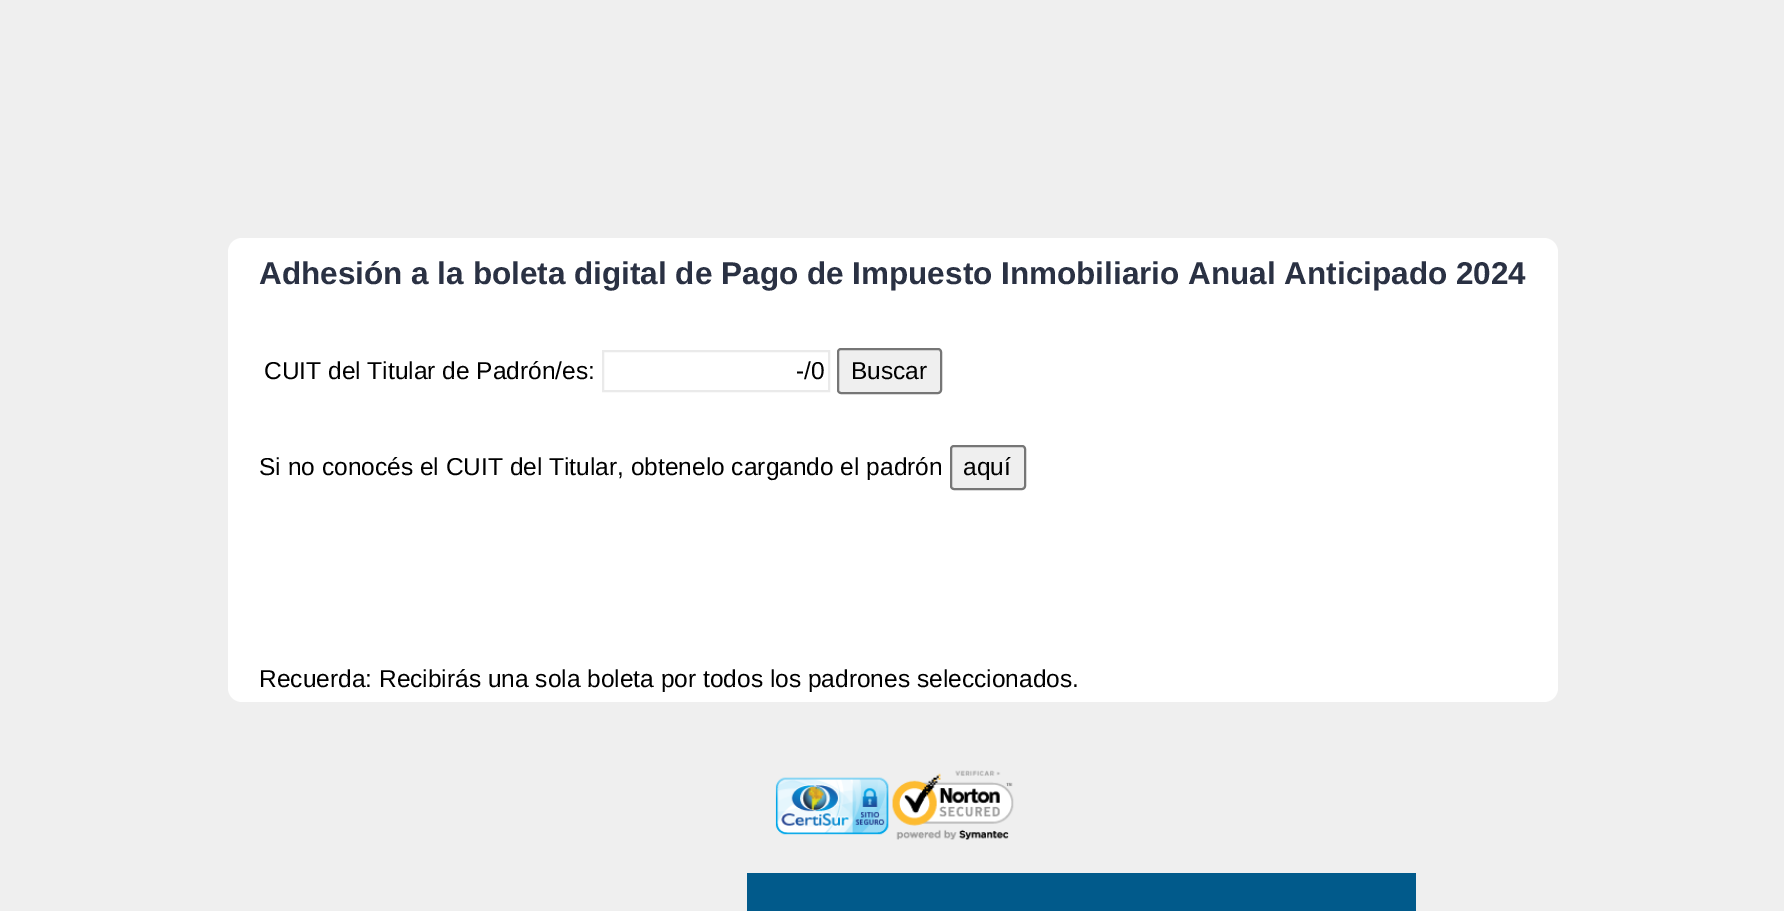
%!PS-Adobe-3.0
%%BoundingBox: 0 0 1784 911
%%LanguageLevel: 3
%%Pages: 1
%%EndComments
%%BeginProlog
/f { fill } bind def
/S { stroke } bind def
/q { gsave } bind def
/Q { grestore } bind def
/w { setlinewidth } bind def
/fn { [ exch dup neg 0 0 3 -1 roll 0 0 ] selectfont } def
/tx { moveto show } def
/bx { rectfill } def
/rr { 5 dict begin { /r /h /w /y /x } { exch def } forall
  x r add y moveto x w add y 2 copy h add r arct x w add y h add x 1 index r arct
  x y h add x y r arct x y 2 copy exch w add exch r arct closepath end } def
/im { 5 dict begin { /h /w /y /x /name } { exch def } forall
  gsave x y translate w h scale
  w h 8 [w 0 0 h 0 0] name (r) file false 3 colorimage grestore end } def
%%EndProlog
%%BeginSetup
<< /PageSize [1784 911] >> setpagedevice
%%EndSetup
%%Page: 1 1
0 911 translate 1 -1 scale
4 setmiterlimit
0.937 setgray
0 0 1784 911 bx
1 setgray
228 238 1330 464 14 rr f
/LiberationSans-Bold 31.5 fn
0.165 0.192 0.263 setrgbcolor
(Adhesión a la boleta digital de Pago de Impuesto Inmobiliario Anual Anticipado 2024) 259 284 tx
/LiberationSans-Regular 24.5 fn
0 setgray
(CUIT del Titular de Padrón/es:) 264 379 tx
0.918 setgray
2 w
603 351 226 40 rectstroke
0 setgray
(-/0) 796 379 tx
0.937 setgray
838 349 103 44 3 rr q f Q
0.463 setgray
S
0 setgray
(Buscar) 851 379 tx
(Si no conocés el CUIT del Titular, obtenelo cargando el padrón) 259 475 tx
0.937 setgray
951 446 74 43 3 rr q f Q
0.463 setgray
S
0 setgray
(aquí) 963 475 tx
(Recuerda: Recibirás una sola boleta por todos los padrones seleccionados.) 259 687 tx
(image0.raw) 775 770 239 70 im
0.004 0.353 0.545 setrgbcolor
747 873 669 38 bx
showpage
%%EOF
